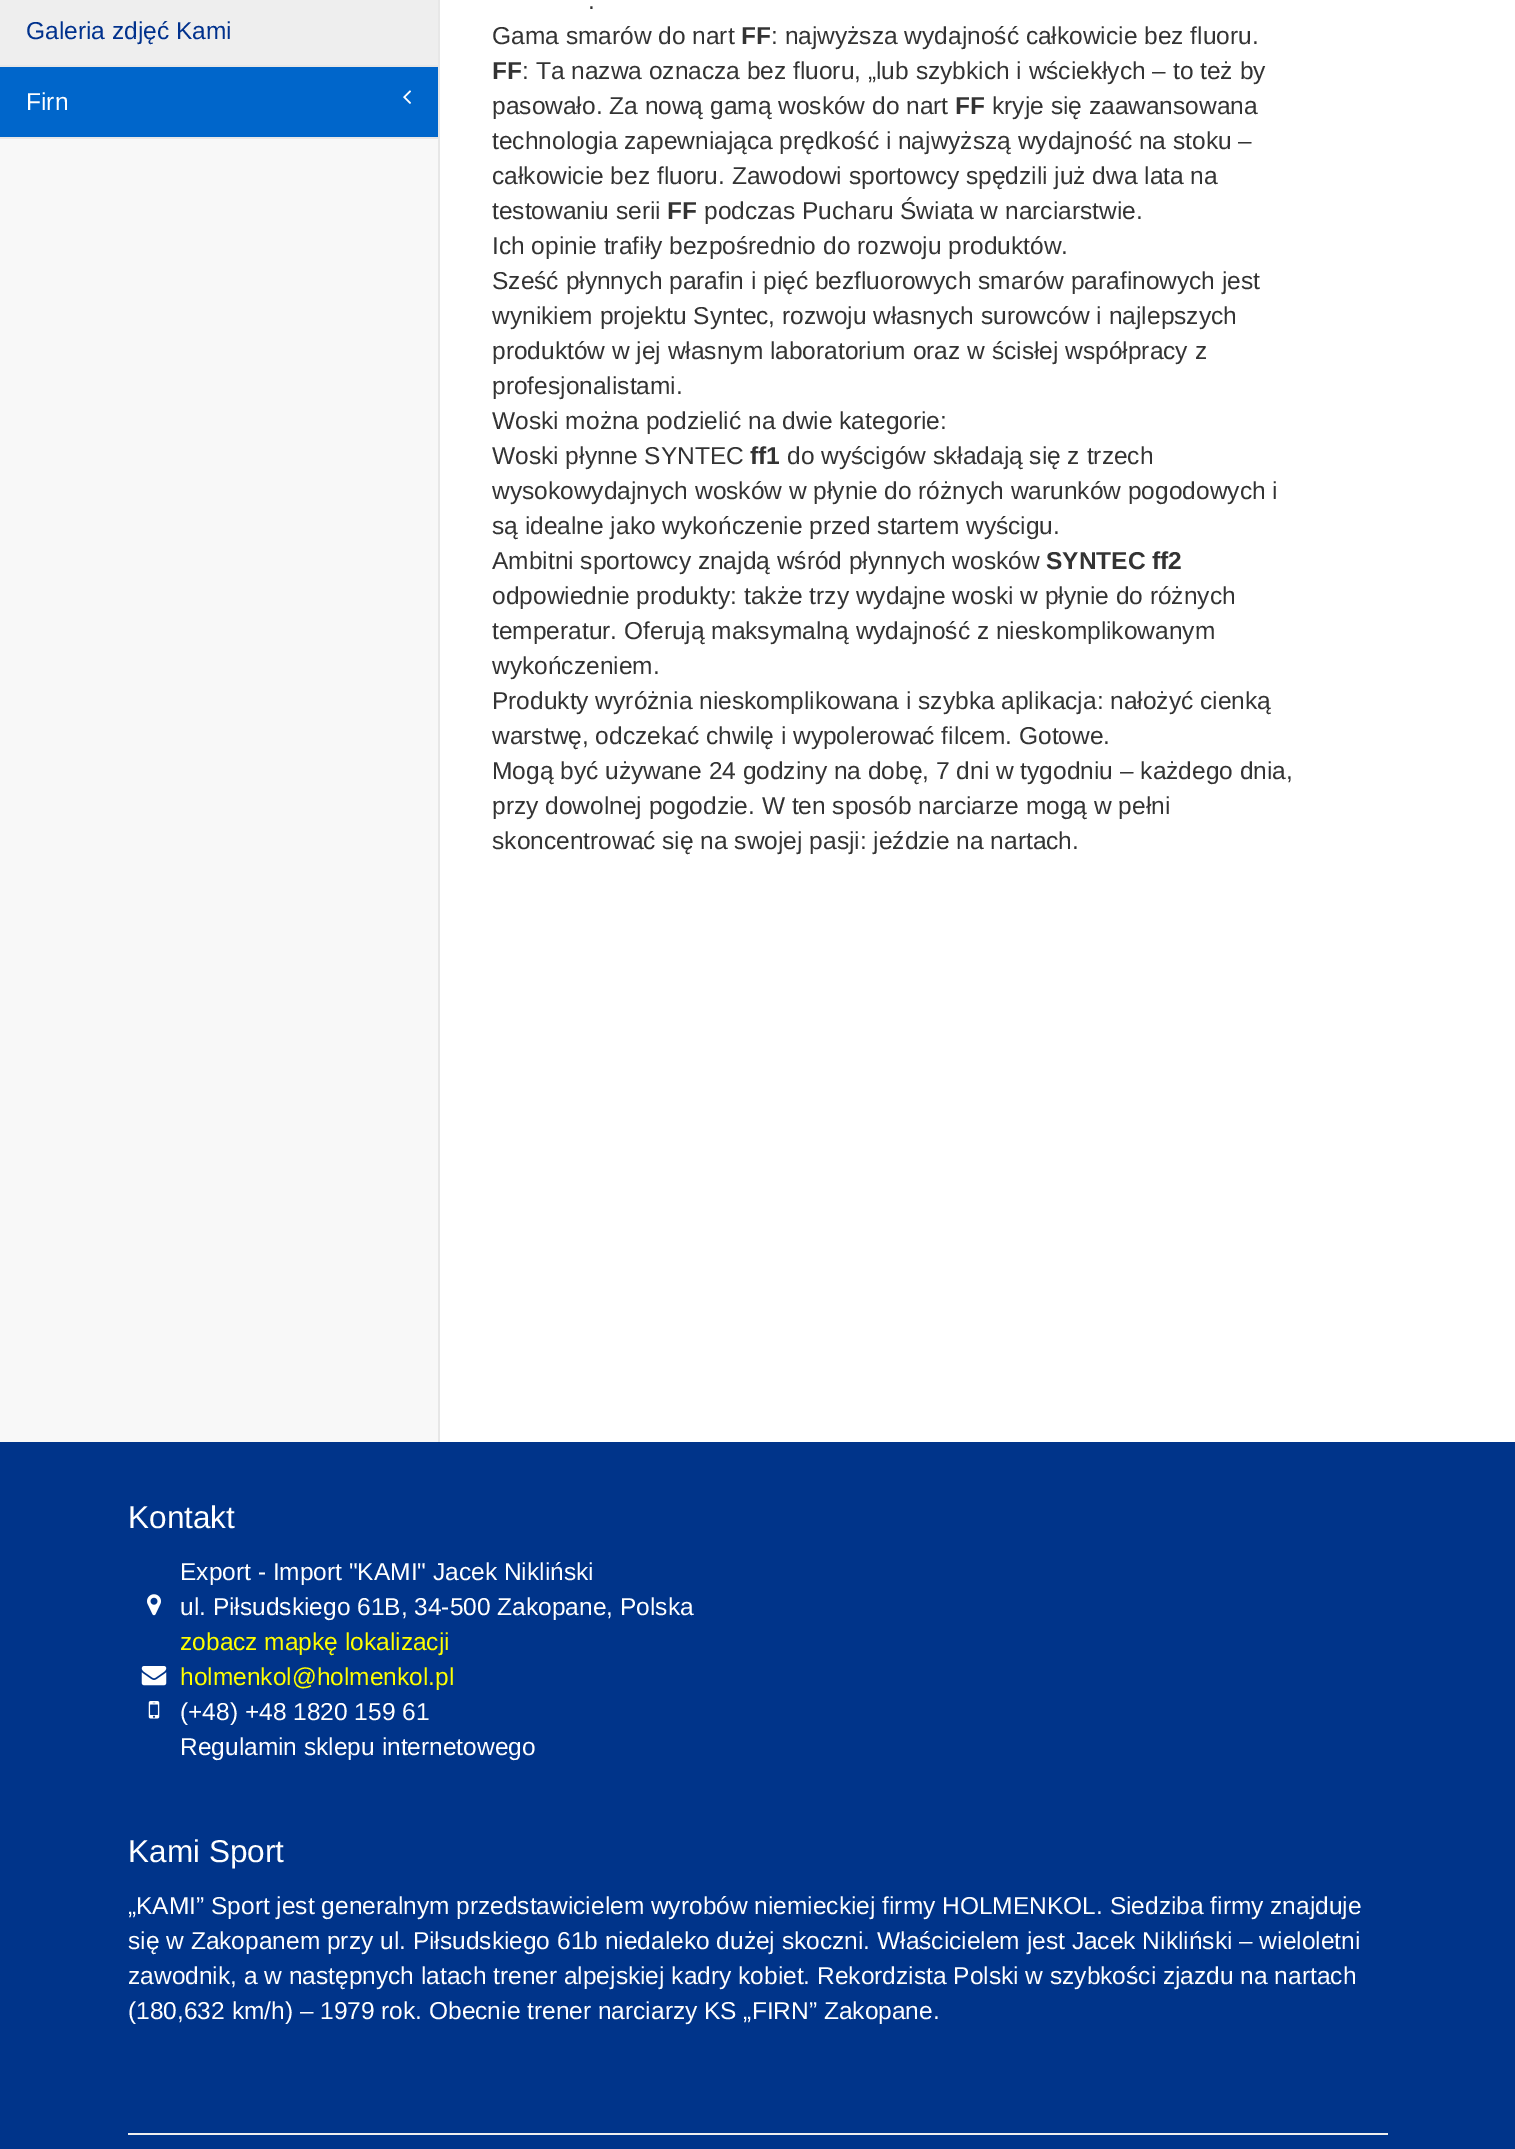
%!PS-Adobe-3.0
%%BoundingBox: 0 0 1515 2149
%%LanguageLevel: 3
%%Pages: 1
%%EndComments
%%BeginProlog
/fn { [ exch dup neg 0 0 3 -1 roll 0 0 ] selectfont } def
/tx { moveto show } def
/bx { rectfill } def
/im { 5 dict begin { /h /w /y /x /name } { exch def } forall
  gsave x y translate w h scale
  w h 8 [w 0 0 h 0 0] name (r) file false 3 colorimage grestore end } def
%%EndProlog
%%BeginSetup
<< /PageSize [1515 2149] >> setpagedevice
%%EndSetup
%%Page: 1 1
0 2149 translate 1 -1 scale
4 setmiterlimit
0.973 setgray
0 0 1515 2149 bx
0.906 setgray
0 65 438 2 bx
0.933 setgray
0 0 438 65 bx
/LiberationSans-Regular 24.5 fn
0 0.192 0.553 setrgbcolor
(Galeria zdjęć Kami) 26 39 tx
0.906 setgray
0 137 438 2 bx
0 0.4 0.796 setrgbcolor
0 67 438 70 bx
1 setgray
(Firn) 26 110 tx
(image0.raw) 403 90 8 14 im
440 0 1075 1442 bx
0.906 setgray
438 0 2 1442 bx
0.2 setgray
(.) 588 9 tx
(Gama smarów do nart) 492 44 tx
/LiberationSans-Bold 24.5 fn
(FF) 741 44 tx
/LiberationSans-Regular 24.5 fn
(: najwyższa wydajność całkowicie bez fluoru.) 771 44 tx
/LiberationSans-Bold 24.5 fn
(FF) 492 79 tx
/LiberationSans-Regular 24.5 fn
(: Ta nazwa oznacza bez fluoru, „lub szybkich i wściekłych – to też by) 522 79 tx
(pasowało. Za nową gamą wosków do nart) 492 114 tx
/LiberationSans-Bold 24.5 fn
(FF) 955 114 tx
/LiberationSans-Regular 24.5 fn
(kryje się zaawansowana) 992 114 tx
(technologia zapewniająca prędkość i najwyższą wydajność na stoku –) 492 149 tx
(całkowicie bez fluoru. Zawodowi sportowcy spędzili już dwa lata na) 492 184 tx
(testowaniu serii) 492 219 tx
/LiberationSans-Bold 24.5 fn
(FF) 667 219 tx
/LiberationSans-Regular 24.5 fn
(podczas Pucharu Świata w narciarstwie.) 704 219 tx
(Ich opinie trafiły bezpośrednio do rozwoju produktów.) 492 254 tx
(Sześć płynnych parafin i pięć bezfluorowych smarów parafinowych jest) 492 289 tx
(wynikiem projektu Syntec, rozwoju własnych surowców i najlepszych) 492 324 tx
(produktów w jej własnym laboratorium oraz w ścisłej współpracy z) 492 359 tx
(profesjonalistami.) 492 394 tx
(Woski można podzielić na dwie kategorie:) 492 429 tx
(Woski płynne SYNTEC) 492 464 tx
/LiberationSans-Bold 24.5 fn
(ff1) 750 464 tx
/LiberationSans-Regular 24.5 fn
(do wyścigów składają się z trzech) 787 464 tx
(wysokowydajnych wosków w płynie do różnych warunków pogodowych i) 492 499 tx
(są idealne jako wykończenie przed startem wyścigu.) 492 534 tx
(Ambitni sportowcy znajdą wśród płynnych wosków) 492 569 tx
/LiberationSans-Bold 24.5 fn
(SYNTEC ff2) 1046 569 tx
/LiberationSans-Regular 24.5 fn
(odpowiednie produkty: także trzy wydajne woski w płynie do różnych) 492 604 tx
(temperatur. Oferują maksymalną wydajność z nieskomplikowanym) 492 639 tx
(wykończeniem.) 492 674 tx
(Produkty wyróżnia nieskomplikowana i szybka aplikacja: nałożyć cienką) 492 709 tx
(warstwę, odczekać chwilę i wypolerować filcem. Gotowe.) 492 744 tx
(Mogą być używane 24 godziny na dobę, 7 dni w tygodniu – każdego dnia,) 492 779 tx
(przy dowolnej pogodzie. W ten sposób narciarze mogą w pełni) 492 814 tx
(skoncentrować się na swojej pasji: jeździe na nartach.) 492 849 tx
0 0.204 0.541 setrgbcolor
0 1442 1515 707 bx
/LiberationSans-Regular 31.5 fn
1 setgray
(Kontakt) 128 1528 tx
/LiberationSans-Regular 24.5 fn
(Export - Import "KAMI" Jacek Nikliński) 180 1580 tx
(image1.raw) 147 1594 14 22 im
(ul. Piłsudskiego 61B, 34-500 Zakopane, Polska) 180 1615 tx
1 1 0 setrgbcolor
(zobacz mapkę lokalizacji) 180 1650 tx
(image2.raw) 141 1666 26 20 im
(holmenkol@holmenkol.pl) 180 1685 tx
(image3.raw) 148 1701 12 18 im
1 setgray
(\(+48\) +48 1820 159 61) 180 1720 tx
(Regulamin sklepu internetowego) 180 1755 tx
/LiberationSans-Regular 31.5 fn
(Kami Sport) 128 1862 tx
/LiberationSans-Regular 24.5 fn
(„KAMI” Sport jest generalnym przedstawicielem wyrobów niemieckiej firmy HOLMENKOL. Siedziba firmy znajduje) 128 1914 tx
(się w Zakopanem przy ul. Piłsudskiego 61b niedaleko dużej skoczni. Właścicielem jest Jacek Nikliński – wieloletni) 128 1949 tx
(zawodnik, a w następnych latach trener alpejskiej kadry kobiet. Rekordzista Polski w szybkości zjazdu na nartach) 128 1984 tx
(\(180,632 km/h\) – 1979 rok. Obecnie trener narciarzy KS „FIRN” Zakopane.) 128 2019 tx
0.933 setgray
128 2133 1260 2 bx
showpage
%%EOF
